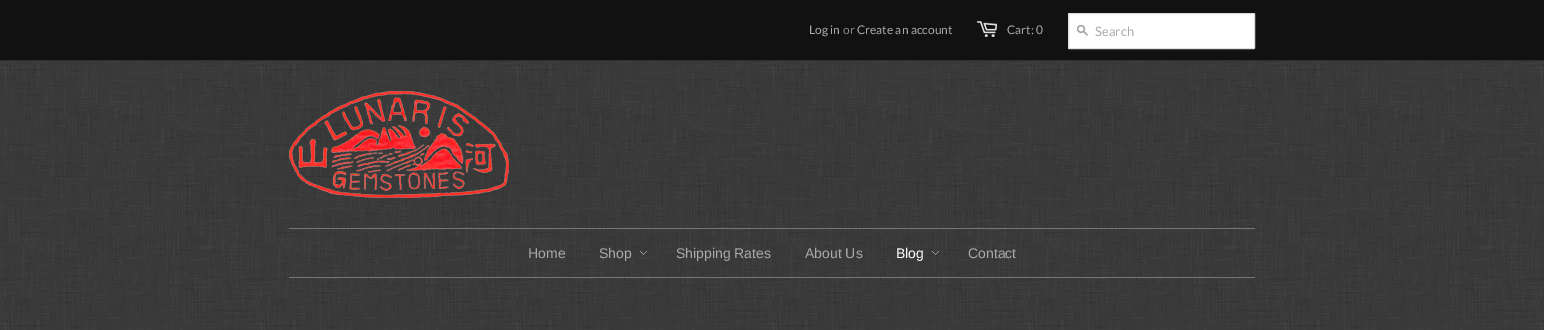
%!PS-Adobe-3.0
%%BoundingBox: 0 0 1544 330
%%LanguageLevel: 3
%%Pages: 1
%%EndComments
%%BeginProlog
/f { fill } bind def
/S { stroke } bind def
/q { gsave } bind def
/Q { grestore } bind def
/fn { [ exch dup neg 0 0 3 -1 roll 0 0 ] selectfont } def
/tx { moveto show } def
/bx { rectfill } def
/rr { 5 dict begin { /r /h /w /y /x } { exch def } forall
  x r add y moveto x w add y 2 copy h add r arct x w add y h add x 1 index r arct
  x y h add x y r arct x y 2 copy exch w add exch r arct closepath end } def
/im { 5 dict begin { /h /w /y /x /name } { exch def } forall
  gsave x y translate w h scale
  w h 8 [w 0 0 h 0 0] name (r) file false 3 colorimage grestore end } def
%%EndProlog
%%BeginSetup
<< /PageSize [1544 330] >> setpagedevice
%%EndSetup
%%Page: 1 1
0 330 translate 1 -1 scale
4 setmiterlimit
1 setgray
0 0 1544 330 bx
(image0.raw) 0 61 1544 269 im
0.067 setgray
0 0 1544 60 bx
0.184 setgray
0 60 1544 1 bx
/Lato-Regular 12 fn
0.667 setgray
(Log in) 809 34 tx
0.533 setgray
(or) 843 34 tx
0.667 setgray
(Create an account) 857 34 tx
(image1.raw) 977 21 20 16 im
(Cart: 0) 1007 34 tx
1 setgray
1068.5 13.5 186 35 0.5 rr q f Q
0.867 setgray
S
(image2.raw) 1077 25 11 11 im
/Lato-Regular 13 fn
0.667 setgray
(Search) 1095 36 tx
(image3.raw) 289 91 220 107 im
0.467 setgray
289 228 966 1 bx
289 277 966 1 bx
/LiberationSans-Regular 14 fn
0.667 setgray
(Home) 528 258 tx
(image4.raw) 640 251 7 4 im
(Shop) 599 258 tx
(Shipping Rates) 676 258 tx
(About Us) 805 258 tx
(image5.raw) 932 251 7 4 im
1 setgray
(Blog) 896 258 tx
0.667 setgray
(Contact) 968 258 tx
showpage
%%EOF
